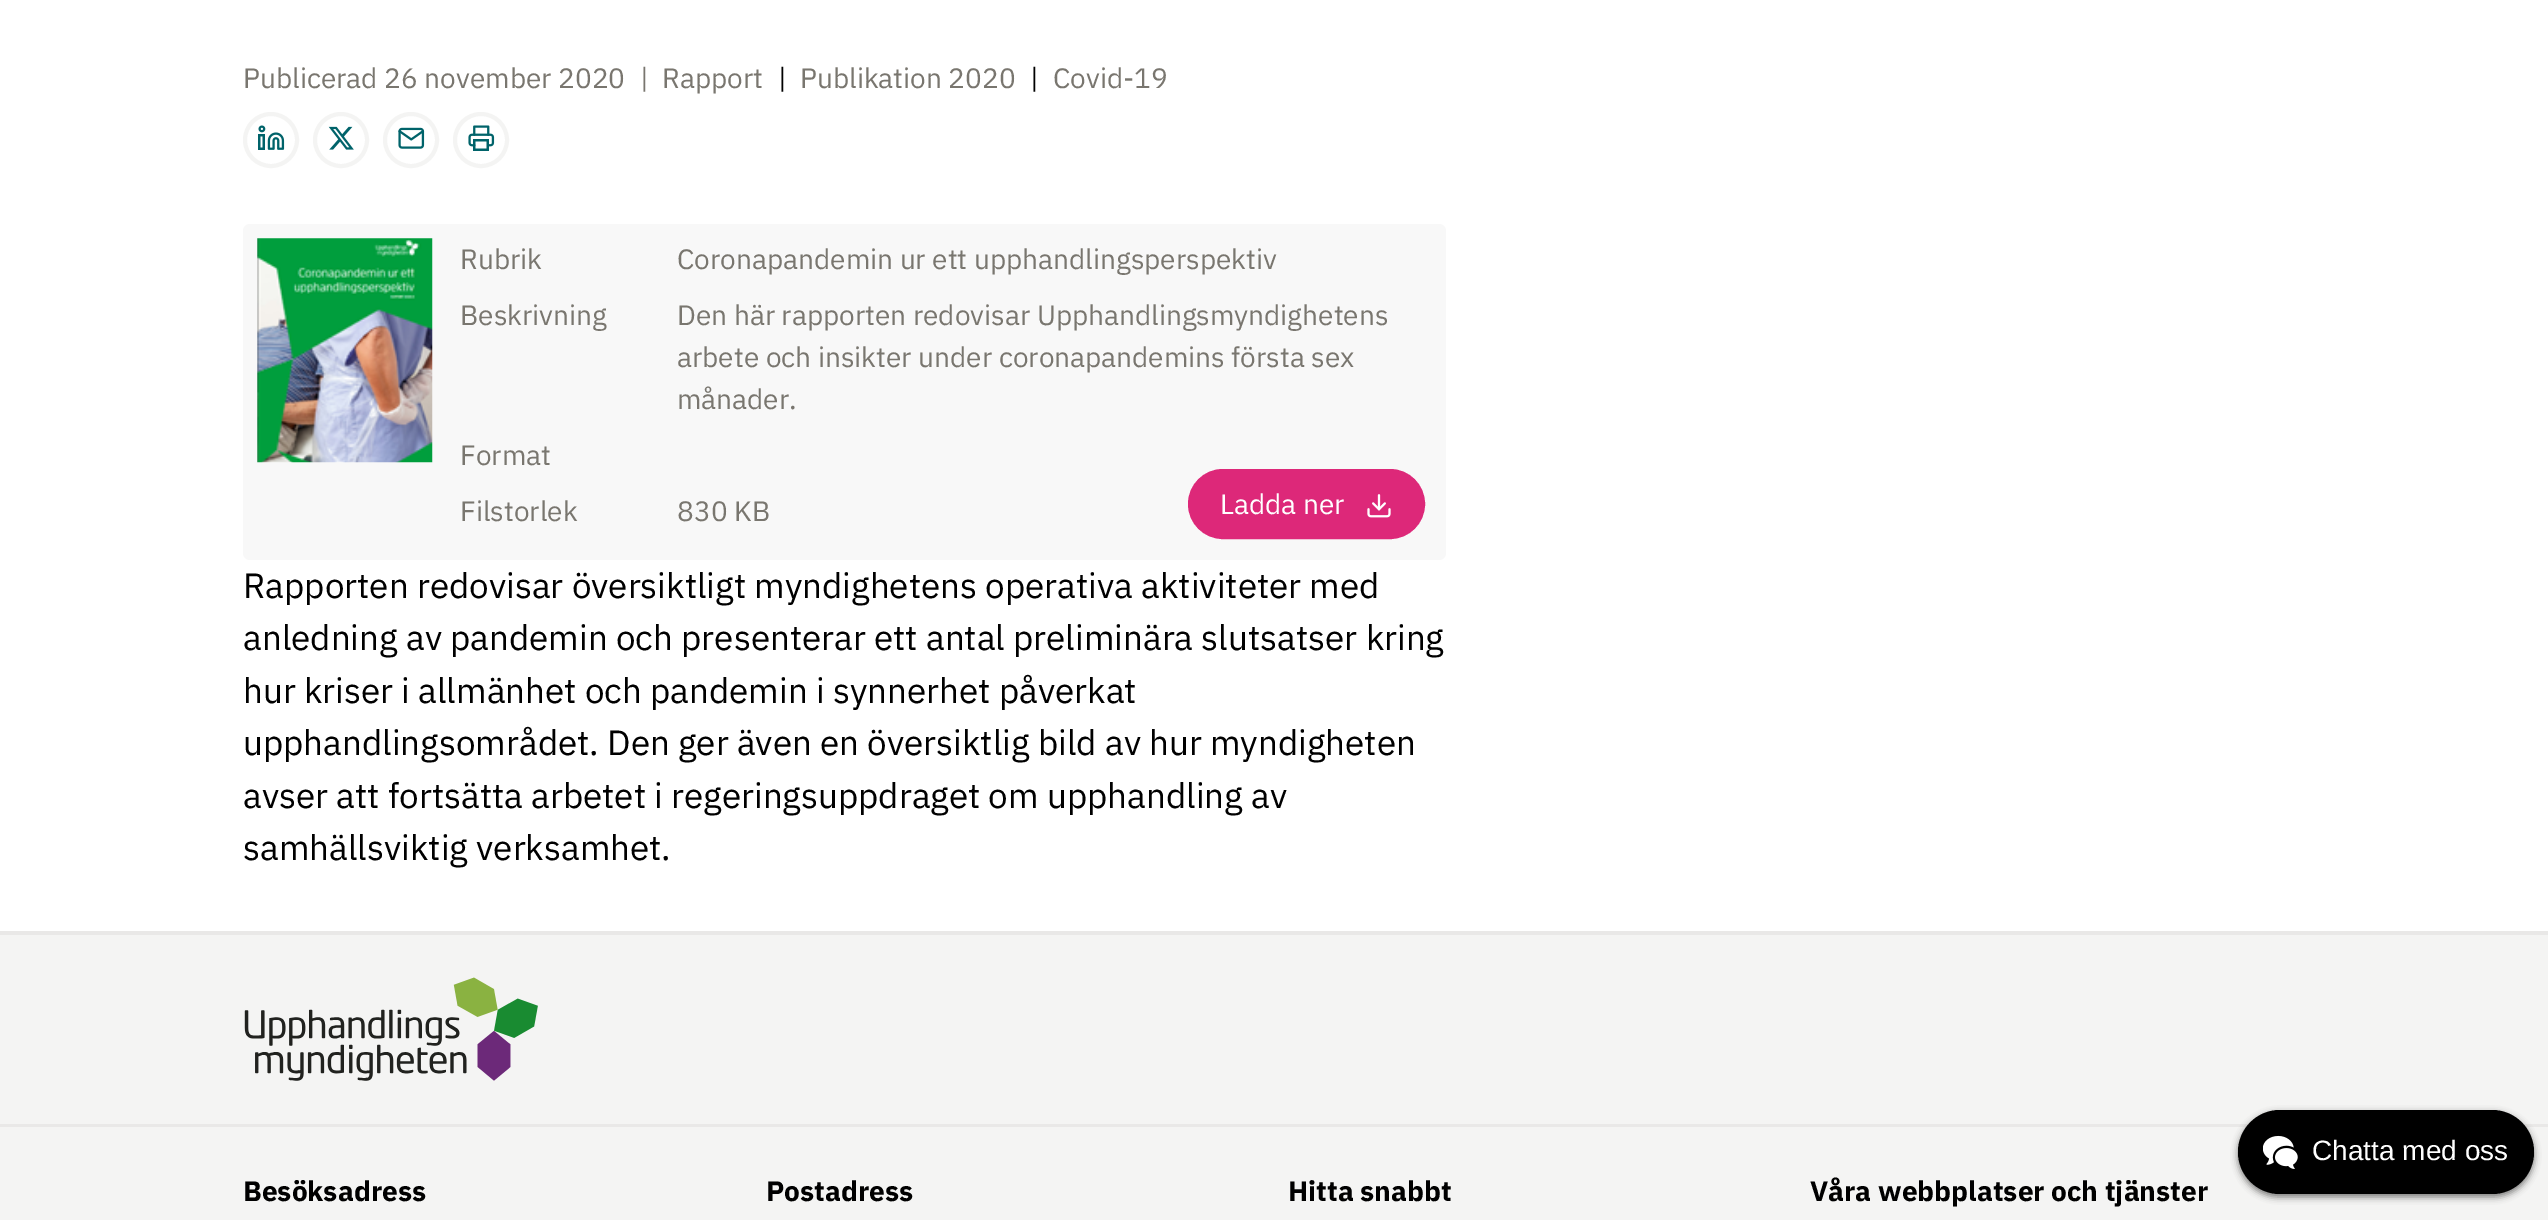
%!PS-Adobe-3.0
%%BoundingBox: 0 0 2548 1220
%%LanguageLevel: 3
%%Pages: 1
%%EndComments
%%BeginProlog
/f { fill } bind def
/S { stroke } bind def
/q { gsave } bind def
/Q { grestore } bind def
/w { setlinewidth } bind def
/fn { [ exch dup neg 0 0 3 -1 roll 0 0 ] selectfont } def
/tx { moveto show } def
/bx { rectfill } def
/al { dup .setfillconstantalpha .setstrokeconstantalpha } def
/ci { newpath 0 360 arc closepath } def
/rr { 5 dict begin { /r /h /w /y /x } { exch def } forall
  x r add y moveto x w add y 2 copy h add r arct x w add y h add x 1 index r arct
  x y h add x y r arct x y 2 copy exch w add exch r arct closepath end } def
/sh { 12 dict begin { /a /b /q /h /w /y /x } { exch def } forall gsave /was 0 def
  9 -2 -9 { dup b mul 4 div /e exch def 1 sub .425 mul 2.718 exch exp 1 add a .99 .min exch div /now exch def
    1 1 now sub 1 was sub div sub al /was now def
    w h .min e 2 mul add 0 gt { x e sub y e sub w e 2 mul add h e 2 mul add
      q e add b .6 mul add w h .min 2 div e add .min 0 .max rr fill } if } for grestore end } def
/im { 5 dict begin { /h /w /y /x /name } { exch def } forall
  gsave x y translate w h scale
  w h 8 [w 0 0 h 0 0] name (r) file false 3 colorimage grestore end } def
%%EndProlog
%%BeginSetup
<< /PageSize [2548 1220] /PageUsesTransparency true >> setpagedevice
%%EndSetup
%%Page: 1 1
0 .pushpdf14devicefilter
0 1220 translate 1 -1 scale
4 setmiterlimit
1 setgray
0 0 2548 1220 bx
/IBMPlexSans-Regular 28 fn
0.475 0.463 0.435 setrgbcolor
(Publicerad 26 november 2020) 243 88 tx
(|) 640 88 tx
(Rapport) 662 88 tx
0 setgray
(|) 778 88 tx
0.475 0.463 0.435 setrgbcolor
(Publikation 2020) 800 88 tx
0 setgray
(|) 1030 88 tx
0.475 0.463 0.435 setrgbcolor
(Covid-19) 1053 88 tx
0.957 0.957 0.953 setrgbcolor
4 w
271 140 26 ci S
(image0.raw) 258 125 27 25 im
341 140 26 ci S
(image1.raw) 328 126 26 24 im
411 140 26 ci S
(image2.raw) 398 127 27 22 im
481 140 26 ci S
(image3.raw) 468 125 27 26 im
0.973 setgray
243 224 1203 336 7 rr f
(image4.raw) 257 238 176 225 im
0.475 0.463 0.435 setrgbcolor
(Rubrik) 460 269 tx
(Coronapandemin ur ett upphandlingsperspektiv) 677 269 tx
(Beskrivning) 460 325 tx
(Den här rapporten redovisar Upphandlingsmyndighetens) 677 325 tx
(arbete och insikter under coronapandemins första sex) 677 367 tx
(månader.) 677 409 tx
(Format) 460 465 tx
(Filstorlek) 460 521 tx
(830 KB) 677 521 tx
0.867 0.157 0.475 setrgbcolor
1190 471 233 66 33 rr q f Q
S
1 setgray
(Ladda ner) 1220 514 tx
(image5.raw) 1367 494 24 24 im
/IBMPlexSans-Regular 35 fn
0 setgray
(Rapporten redovisar översiktligt myndighetens operativa aktiviteter med) 243 598 tx
(anledning av pandemin och presenterar ett antal preliminära slutsatser kring) 243 650 tx
(hur kriser i allmänhet och pandemin i synnerhet påverkat) 243 703 tx
(upphandlingsområdet. Den ger även en översiktlig bild av hur myndigheten) 243 755 tx
(avser att fortsätta arbetet i regeringsuppdraget om upphandling av) 243 808 tx
(samhällsviktig verksamhet.) 243 860 tx
0.957 0.957 0.953 setrgbcolor
0 935 2548 189 bx
0.914 0.91 0.906 setrgbcolor
0 1124 2548 3 bx
0.957 0.957 0.953 setrgbcolor
0 1127 2548 93 bx
0 setgray
2238 1113 296 84 42 3.5 0.5 sh
2238 1110 296 84 42 rr f
(image6.raw) 2263 1135 35 34 im
/LiberationSans-Regular 28 fn
1 setgray
(Chatta med oss) 2312 1160 tx
0.914 0.91 0.906 setrgbcolor
0 931 2548 4 bx
(image7.raw) 244 977 294 104 im
/IBMPlexSans-Bold 28 fn
0 setgray
(Besöksadress) 243 1201 tx
(Postadress) 766 1201 tx
(Hitta snabbt) 1288 1201 tx
(Våra webbplatser och tjänster) 1810 1201 tx
.poppdf14devicefilter showpage
%%EOF
